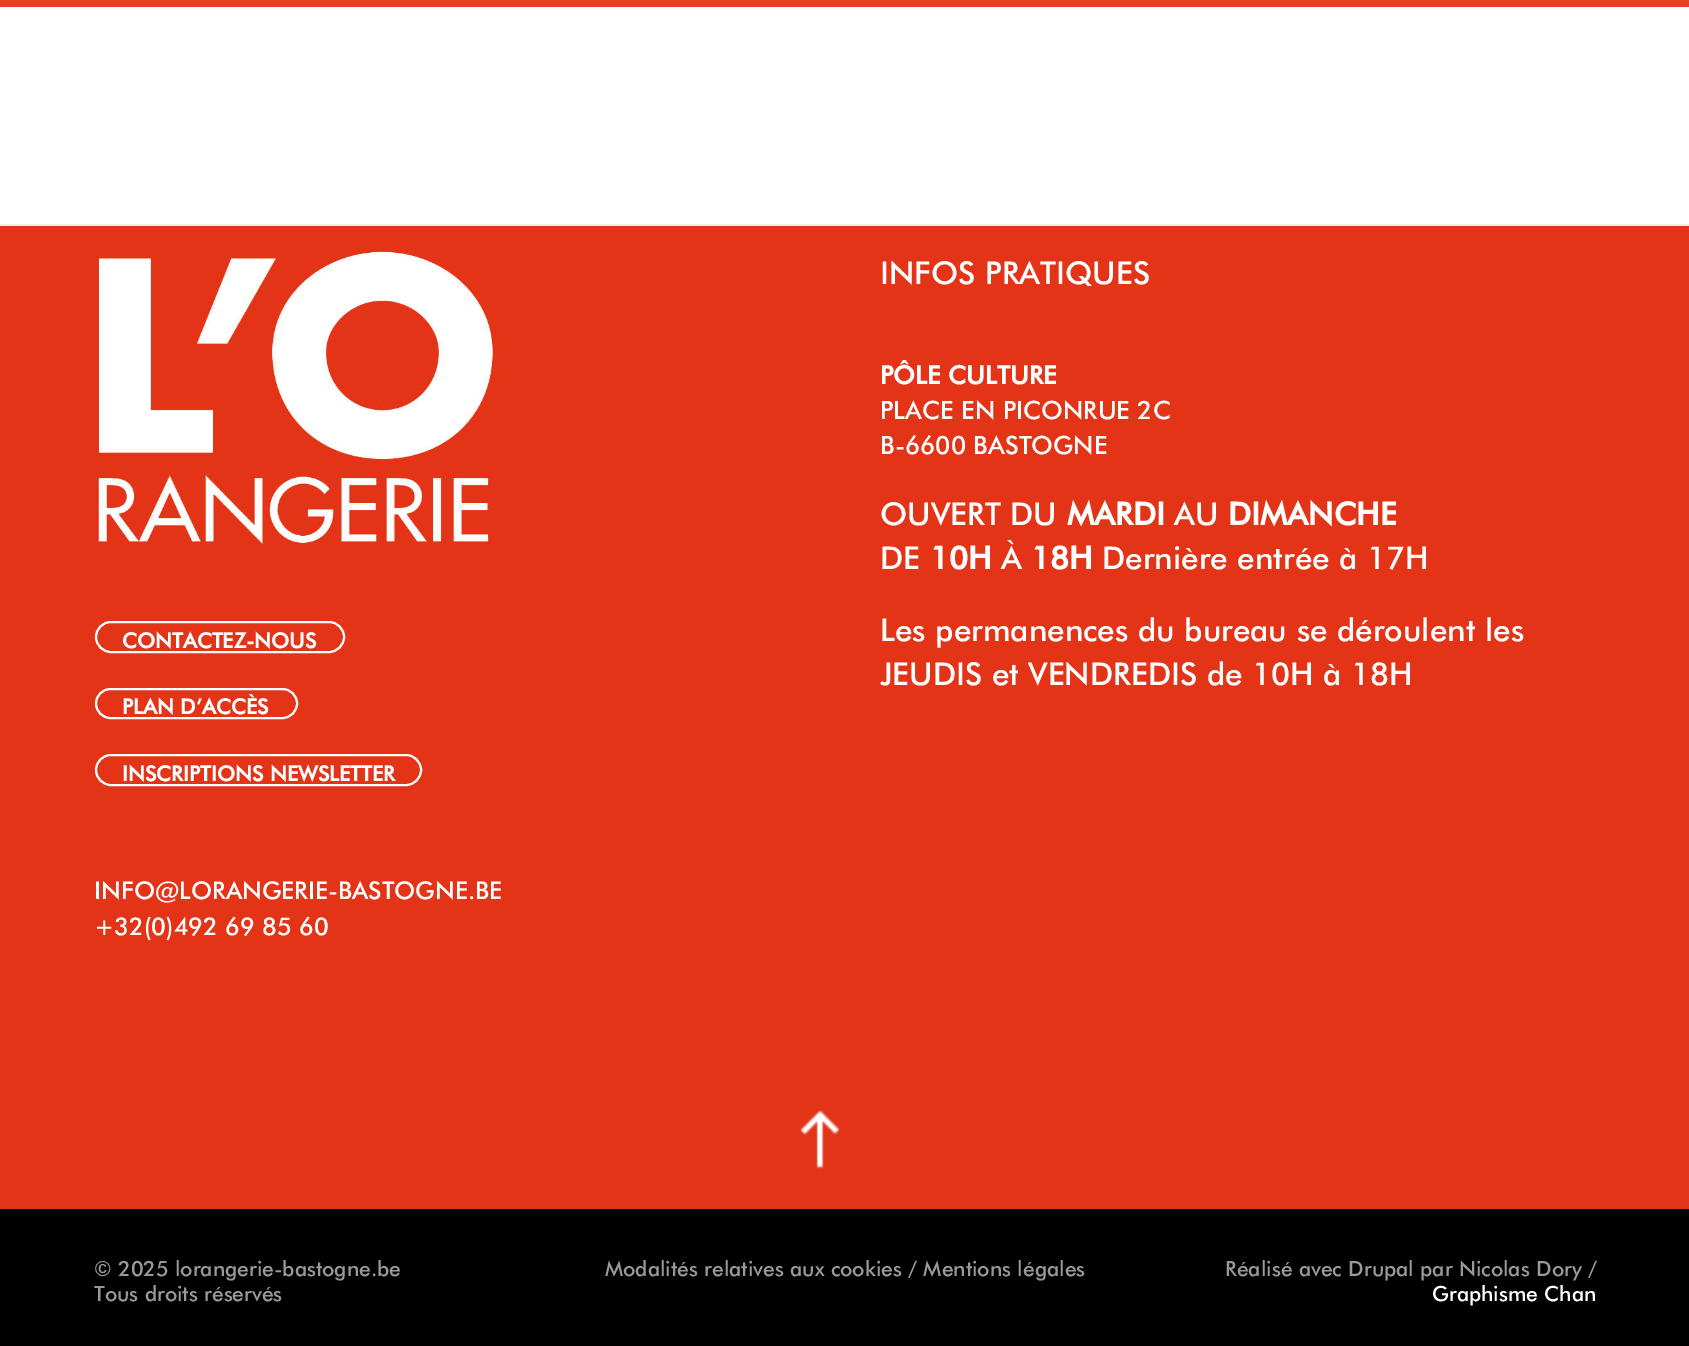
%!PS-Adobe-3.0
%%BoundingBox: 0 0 1689 1346
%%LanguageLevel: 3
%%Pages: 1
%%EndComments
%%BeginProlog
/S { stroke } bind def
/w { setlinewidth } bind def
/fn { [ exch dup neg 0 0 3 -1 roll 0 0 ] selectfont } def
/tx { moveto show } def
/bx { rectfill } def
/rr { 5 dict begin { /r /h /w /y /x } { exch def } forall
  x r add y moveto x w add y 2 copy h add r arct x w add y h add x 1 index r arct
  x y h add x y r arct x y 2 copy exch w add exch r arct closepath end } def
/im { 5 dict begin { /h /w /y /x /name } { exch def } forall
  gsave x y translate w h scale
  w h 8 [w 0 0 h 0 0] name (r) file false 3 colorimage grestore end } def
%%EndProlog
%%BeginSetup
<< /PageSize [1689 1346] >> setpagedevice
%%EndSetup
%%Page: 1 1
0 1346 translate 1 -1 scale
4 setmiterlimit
1 setgray
0 0 1689 1346 bx
0.929 0.251 0.133 setrgbcolor
0 0 1689 7 bx
0.894 0.204 0.09 setrgbcolor
0 226 1689 983 bx
0.933 setgray
0 224 1689 2 bx
(image0.raw) 96 250 399 294 im
/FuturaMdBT-Medium 31.5 fn
1 setgray
(INFOS PRATIQUES) 880 284 tx
/FuturaMdBT-Bold 25.25 fn
(PÔLE CULTURE) 880 384 tx
/FuturaMdBT-Medium 25.25 fn
(PLACE EN PICONRUE 2C) 880 419 tx
(B-6600 BASTOGNE) 880 454 tx
/FuturaMdBT-Medium 31.5 fn
(OUVERT DU) 880 525 tx
/FuturaMdBT-Bold 31.5 fn
(MARDI) 1067 525 tx
/FuturaMdBT-Medium 31.5 fn
(AU) 1174 525 tx
/FuturaMdBT-Bold 31.5 fn
(DIMANCHE) 1228 525 tx
/FuturaMdBT-Medium 31.5 fn
(DE) 880 569 tx
/FuturaMdBT-Bold 31.5 fn
(10H) 930 569 tx
/FuturaMdBT-Medium 31.5 fn
(À) 1001 569 tx
/FuturaMdBT-Bold 31.5 fn
(18H) 1031 569 tx
/FuturaMdBT-Medium 31.5 fn
(Dernière entrée à 17H) 1102 569 tx
(Les permanences du bureau se déroulent les) 880 641 tx
(JEUDIS et VENDREDIS de 10H à 18H) 880 685 tx
2 w
96 622 248 30 15 rr S
/FuturaMdBT-Bold 21 fn
(CONTACTEZ-NOUS) 122 648 tx
96 689 201 29 14.5 rr S
(PLAN D’ACCÈS) 122 714 tx
96 755 325 30 15 rr S
(INSCRIPTIONS NEWSLETTER) 122 781 tx
/FuturaMdBT-Medium 24.5 fn
(INFO@LORANGERIE-BASTOGNE.BE) 94 899 tx
(+32\(0\)492 69 85 60) 94 935 tx
0 setgray
0 1209 1689 137 bx
/FuturaMdBT-Medium 21 fn
0.6 setgray
(© 2025 lorangerie-bastogne.be) 94 1276 tx
(Tous droits réservés) 94 1301 tx
(Modalités relatives aux cookies / Mentions légales) 605 1276 tx
(Réalisé avec Drupal par Nicolas Dory /) 1225 1276 tx
1 setgray
(Graphisme Chan) 1432 1301 tx
(image1.raw) 799 1110 42 59 im
showpage
%%EOF
